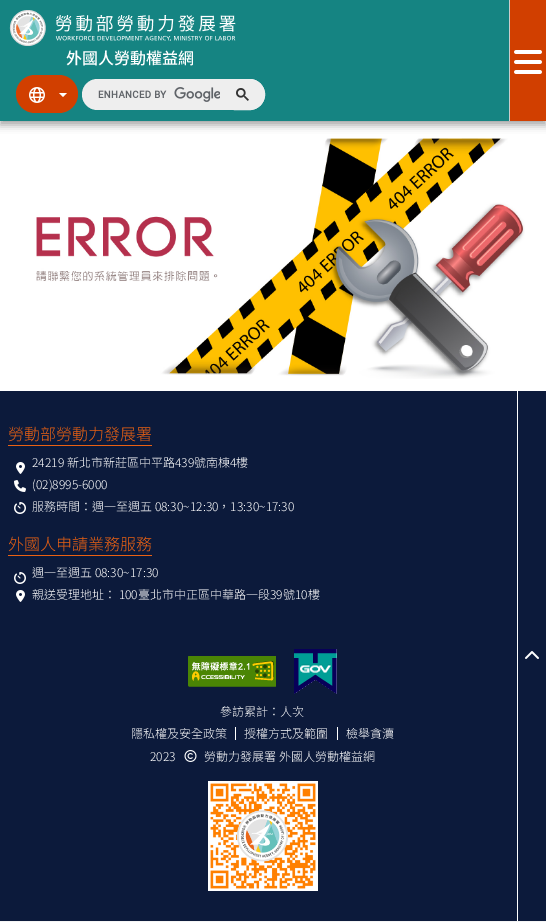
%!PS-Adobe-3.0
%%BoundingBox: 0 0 546 922
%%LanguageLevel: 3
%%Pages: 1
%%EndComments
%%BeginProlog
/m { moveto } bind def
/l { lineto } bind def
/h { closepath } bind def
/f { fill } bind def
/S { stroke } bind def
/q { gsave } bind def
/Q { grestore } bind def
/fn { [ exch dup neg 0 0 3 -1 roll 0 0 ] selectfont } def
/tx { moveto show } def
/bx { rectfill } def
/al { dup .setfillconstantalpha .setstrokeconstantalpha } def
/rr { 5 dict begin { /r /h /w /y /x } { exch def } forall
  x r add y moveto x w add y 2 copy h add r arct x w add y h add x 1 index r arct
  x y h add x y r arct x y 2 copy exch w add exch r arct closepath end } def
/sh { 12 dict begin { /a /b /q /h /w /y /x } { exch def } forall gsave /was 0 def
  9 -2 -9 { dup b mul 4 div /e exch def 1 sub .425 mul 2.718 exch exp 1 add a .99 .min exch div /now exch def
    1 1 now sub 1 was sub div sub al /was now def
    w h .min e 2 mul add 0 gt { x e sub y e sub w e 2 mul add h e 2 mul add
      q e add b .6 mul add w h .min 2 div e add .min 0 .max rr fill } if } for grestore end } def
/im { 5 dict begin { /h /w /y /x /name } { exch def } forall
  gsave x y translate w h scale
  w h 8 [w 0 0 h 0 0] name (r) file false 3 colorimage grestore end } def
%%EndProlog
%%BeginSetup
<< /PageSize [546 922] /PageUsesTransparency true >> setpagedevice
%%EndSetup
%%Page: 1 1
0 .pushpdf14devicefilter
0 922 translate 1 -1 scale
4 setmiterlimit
0.961 setgray
0 0 546 922 bx
1 setgray
0 121 546 270 bx
0 setgray
0 4 546 121 0 4 0.35 sh
0.082 0.518 0.51 setrgbcolor
0 0 509 121 bx
(image0.raw) 9 10 227 36 im
/NotoSansTC-Medium 16 fn
1 setgray
(外國人勞動權益網) 66 64 tx
0.82 0.247 0 setrgbcolor
16 75 62 38 19 rr f
(image1.raw) 29 87 16 16 im
1 setgray
59 93 m 67 93 l 63 97 l h f
0.933 setgray
82 79 183 31 15.5 rr f
(image2.raw) 98 87 122 15 im
220.5 79.5 44 30 15 rr q f Q
S
(image3.raw) 236 88 13 13 im
0.82 0.247 0 setrgbcolor
510 0 36 121 bx
0.8 setgray
509 0 1 121 bx
(image4.raw) 514 50 28 24 im
(image5.raw) 36 138 489 241 im
0.047 0.102 0.231 setrgbcolor
0 391 546 530 bx
/NotoSansTC-Light 16 fn
0.922 0.38 0.071 setrgbcolor
(勞動部勞動力發展署) 8 440 tx
8 445 144 1 bx
(image6.raw) 16 462 9 12 im
/NotoSansTC-Light 12 fn
1 setgray
(24219 新北市新莊區中平路439號南棟4樓) 32 467 tx
(image7.raw) 14 480 12 12 im
(\(02\)8995-6000) 32 489 tx
(image8.raw) 14 502 12 12 im
(服務時間：週一至週五 08:30~12:30，13:30~17:30) 32 511 tx
/NotoSansTC-Light 16 fn
0.922 0.38 0.071 setrgbcolor
(外國人申請業務服務) 8 550 tx
8 555 144 1 bx
(image8.raw) 14 572 12 12 im
/NotoSansTC-Light 12 fn
1 setgray
(週一至週五 08:30~17:30) 32 577 tx
(image6.raw) 16 590 9 12 im
(親送受理地址： 100臺北市中正區中華路一段39號10樓) 32 599 tx
(image9.raw) 188 656 88 31 im
(image10.raw) 294 649 43 45 im
(參訪累計：人次) 220 716 tx
(隱私權及安全政策) 131 738 tx
235 727 1 13 bx
(授權方式及範圍) 244 738 tx
337 727 1 13 bx
(檢舉貪瀆) 346 738 tx
(2023) 150 761 tx
(image11.raw) 184 750 13 12 im
(勞動力發展署 外國人勞動權益網) 204 761 tx
(image12.raw) 208 781 110 110 im
517 391 1 530 bx
(image13.raw) 525 651 14 8 im
.poppdf14devicefilter showpage
%%EOF
